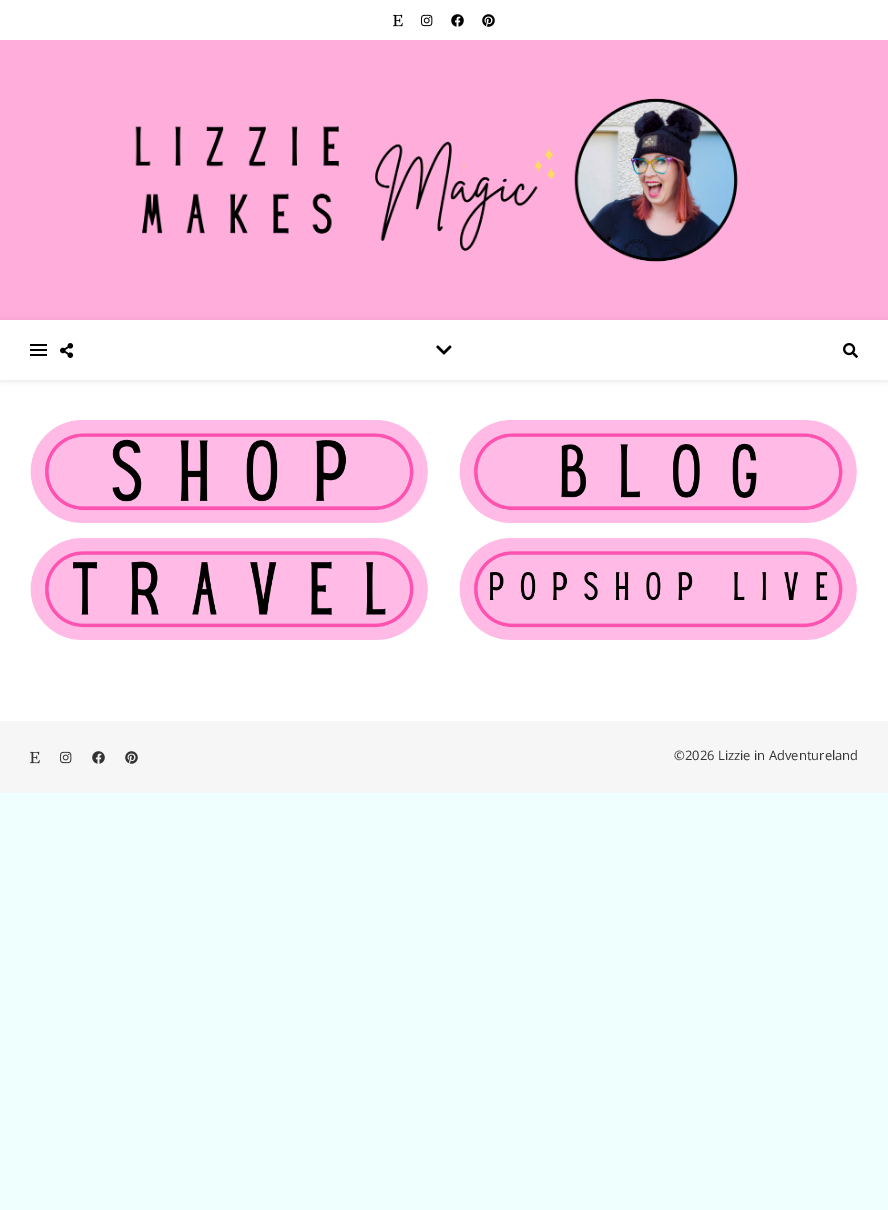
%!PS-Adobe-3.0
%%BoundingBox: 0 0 888 1210
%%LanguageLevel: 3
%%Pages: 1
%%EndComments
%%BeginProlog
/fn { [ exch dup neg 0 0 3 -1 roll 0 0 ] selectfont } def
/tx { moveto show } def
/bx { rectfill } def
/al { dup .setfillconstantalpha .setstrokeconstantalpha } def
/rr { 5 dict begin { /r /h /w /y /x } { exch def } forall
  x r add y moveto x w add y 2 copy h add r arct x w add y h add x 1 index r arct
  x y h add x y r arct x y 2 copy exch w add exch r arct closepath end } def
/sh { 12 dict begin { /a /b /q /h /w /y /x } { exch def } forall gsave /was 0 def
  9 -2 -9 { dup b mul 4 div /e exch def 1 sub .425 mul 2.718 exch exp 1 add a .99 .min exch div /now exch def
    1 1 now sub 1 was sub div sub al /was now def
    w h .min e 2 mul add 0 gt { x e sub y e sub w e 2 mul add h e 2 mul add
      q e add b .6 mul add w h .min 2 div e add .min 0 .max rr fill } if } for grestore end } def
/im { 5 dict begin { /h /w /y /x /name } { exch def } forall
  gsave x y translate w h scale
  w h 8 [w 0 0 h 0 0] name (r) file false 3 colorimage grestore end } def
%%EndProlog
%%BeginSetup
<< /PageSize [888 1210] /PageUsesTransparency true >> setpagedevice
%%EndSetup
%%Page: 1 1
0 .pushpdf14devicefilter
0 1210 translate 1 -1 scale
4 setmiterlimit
0.937 1 0.996 setrgbcolor
0 0 888 1210 bx
1 setgray
0 0 888 40 bx
(image0.raw) 393 14 10 13 im
(image1.raw) 421 14 12 13 im
(image2.raw) 451 14 13 13 im
(image3.raw) 482 14 13 13 im
(image4.raw) 0 40 888 280 im
0 380 888 341 bx
0 setgray
0 321 888 60 0 2.5 0.1 sh
1 setgray
0 320 888 60 bx
0 setgray
30 344 17 2 bx
30 349 17 2 bx
30 354 17 2 bx
(image5.raw) 60 343 14 15 im
(image6.raw) 436 345 16 10 im
(image7.raw) 843 343 15 15 im
(image8.raw) 30 420 398 103 im
(image9.raw) 30 538 398 102 im
(image10.raw) 459 420 398 103 im
(image11.raw) 459 538 398 102 im
0.965 setgray
0 721 888 72 bx
(image12.raw) 30 751 10 13 im
(image13.raw) 60 751 12 13 im
(image14.raw) 92 751 13 13 im
(image15.raw) 125 751 13 13 im
/OpenSans-Regular 13 fn
0.2 setgray
(©2026 Lizzie in Adventureland) 674 760 tx
.poppdf14devicefilter showpage
%%EOF
